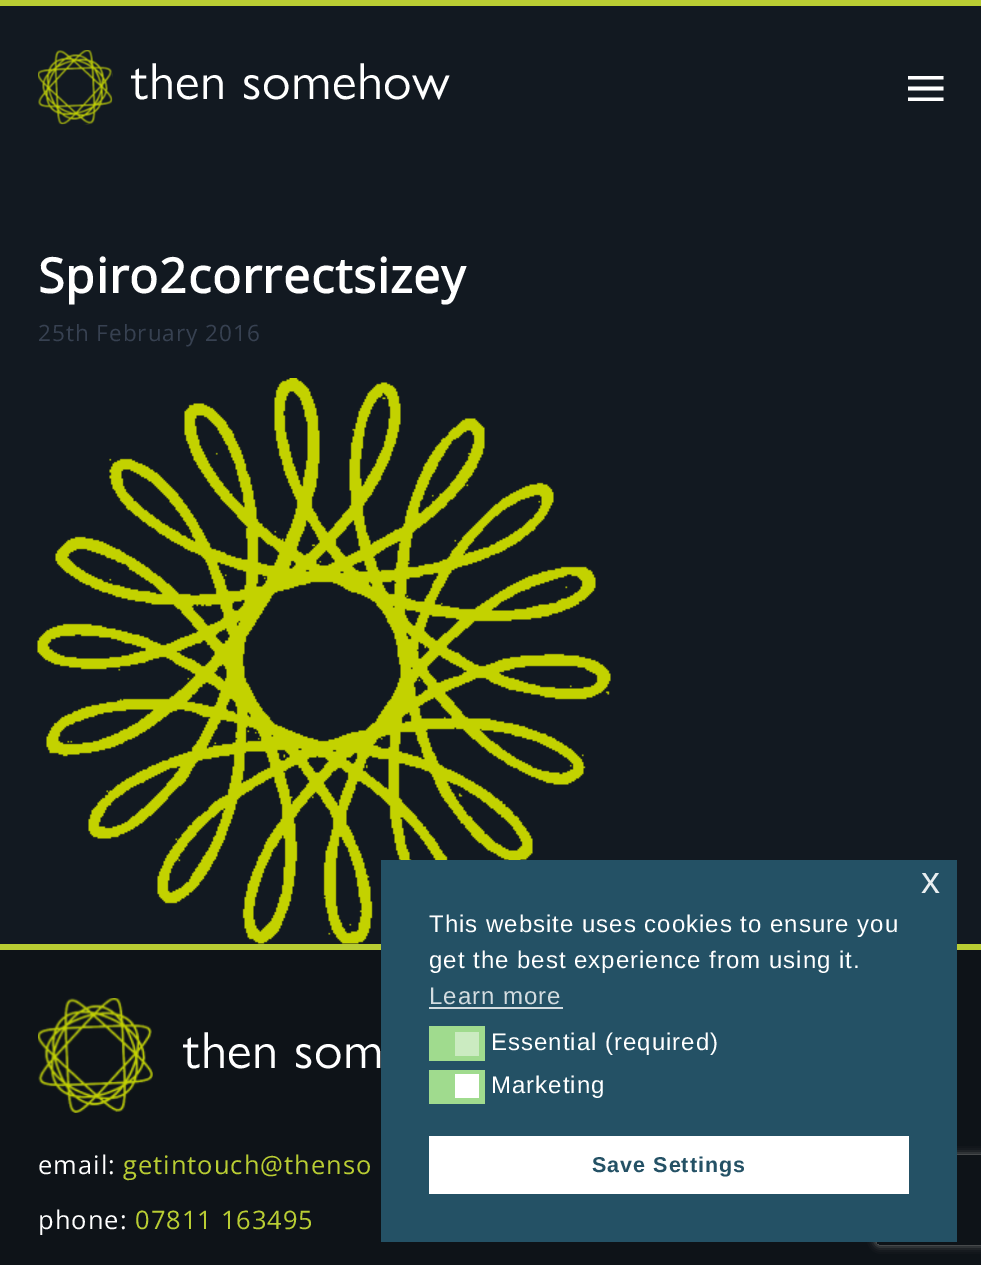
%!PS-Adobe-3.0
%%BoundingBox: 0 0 981 1265
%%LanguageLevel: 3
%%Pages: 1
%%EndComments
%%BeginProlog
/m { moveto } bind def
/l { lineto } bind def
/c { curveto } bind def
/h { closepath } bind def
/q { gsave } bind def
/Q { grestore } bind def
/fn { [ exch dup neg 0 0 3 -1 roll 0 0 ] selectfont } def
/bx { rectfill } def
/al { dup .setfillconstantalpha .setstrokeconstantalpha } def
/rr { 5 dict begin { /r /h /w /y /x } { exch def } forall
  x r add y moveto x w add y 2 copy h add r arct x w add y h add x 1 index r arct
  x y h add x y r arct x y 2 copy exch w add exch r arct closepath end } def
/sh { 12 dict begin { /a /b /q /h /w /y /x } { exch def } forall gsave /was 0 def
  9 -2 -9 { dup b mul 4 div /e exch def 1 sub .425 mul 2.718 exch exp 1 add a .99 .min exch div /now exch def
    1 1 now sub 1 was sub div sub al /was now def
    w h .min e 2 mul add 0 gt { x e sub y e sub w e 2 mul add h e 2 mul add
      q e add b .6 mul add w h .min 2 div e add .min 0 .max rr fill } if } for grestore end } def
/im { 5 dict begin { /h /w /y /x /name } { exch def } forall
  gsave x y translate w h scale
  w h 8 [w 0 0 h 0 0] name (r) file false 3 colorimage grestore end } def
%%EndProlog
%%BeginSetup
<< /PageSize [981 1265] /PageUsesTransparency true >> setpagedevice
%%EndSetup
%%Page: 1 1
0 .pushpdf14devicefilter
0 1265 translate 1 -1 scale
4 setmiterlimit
0.071 0.098 0.129 setrgbcolor
0 0 981 1265 bx
0.725 0.804 0.2 setrgbcolor
0 0 981 6 bx
(image0.raw) 38 50 75 75 im
/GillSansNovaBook-Regular 52.5 fn
1 setgray
131 99 m 0.5 0 (then somehow) ashow
q
908 71 36 36 rectclip
907.5 76 m 943.5 76 l 943.5 79.5 l 907.5 79.5 l h 907.5 86.5 m 943.5 86.5 l 943.5 90.5 l 907.5 90.5 l h 907.5 97.5 m 943.5 97.5 l 943.5 101 l 907.5 101 l h eofill
Q
/OpenSans-Bold 48 fn
38 293 m 1 0 (Spiro2correctsizey) ashow
/OpenSans-Regular 22.5 fn
0.216 0.255 0.318 setrgbcolor
38 341 m 1 0 (25th February 2016) ashow
(image1.raw) 37 378 574 566 im
0.055 0.075 0.094 setrgbcolor
0 950 981 315 bx
0.725 0.804 0.2 setrgbcolor
0 944 981 6 bx
(image2.raw) 38 998 115 115 im
/GillSansNovaBook-Regular 52.5 fn
1 setgray
183 1068 m 0.5 0 (then som) ashow
/OpenSans-Regular 25.5 fn
38 1174 m 1 0 (email:) ashow
0.725 0.804 0.2 setrgbcolor
123 1174 m 1 0 (getintouch@thenso) ashow
1 setgray
38 1229 m 1 0 (phone:) ashow
0.725 0.804 0.2 setrgbcolor
135 1229 m 1 0 (07811 163495) ashow
q
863 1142 m 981 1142 l 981 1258 l 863 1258 l h 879 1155 m 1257 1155 l 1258.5 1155 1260 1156.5 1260 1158 c 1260 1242 l 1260 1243.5 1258.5 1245 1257 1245 c 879 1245 l 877.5 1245 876 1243.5 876 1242 c 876 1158 l 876 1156.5 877.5 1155 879 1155 c h eoclip newpath
0.502 setgray
876 1155 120 90 3 4 1 sh
Q
0.141 0.318 0.396 setrgbcolor
381 860 576 382 bx
/LiberationSans-Regular 38 fn
0.914 0.933 0.941 setrgbcolor
921 893 m 1 0 (x) ashow
/LiberationSans-Regular 24 fn
1 setgray
429 932 m 1 0 (This website uses cookies to ensure you) ashow
429 968 m 1 0 (get the best experience from using it.) ashow
0.827 0.863 0.878 setrgbcolor
429 1004 m 1 0 (Learn more) ashow
429 1007 134 2 bx
0.627 0.859 0.557 setrgbcolor
429 1026 56 35 bx
0.796 0.922 0.757 setrgbcolor
455 1032 24 24 bx
1 setgray
491 1050 m 1 0 (Essential \(required\)) ashow
0.627 0.859 0.557 setrgbcolor
429 1070 56 34 bx
1 setgray
455 1074 24 24 bx
491 1093 m 1 0 (Marketing) ashow
429 1136 480 58 bx
/LiberationSans-Bold 21.5 fn
0.141 0.318 0.396 setrgbcolor
592 1172 m 1 0 (Save Settings) ashow
.poppdf14devicefilter showpage
%%EOF
